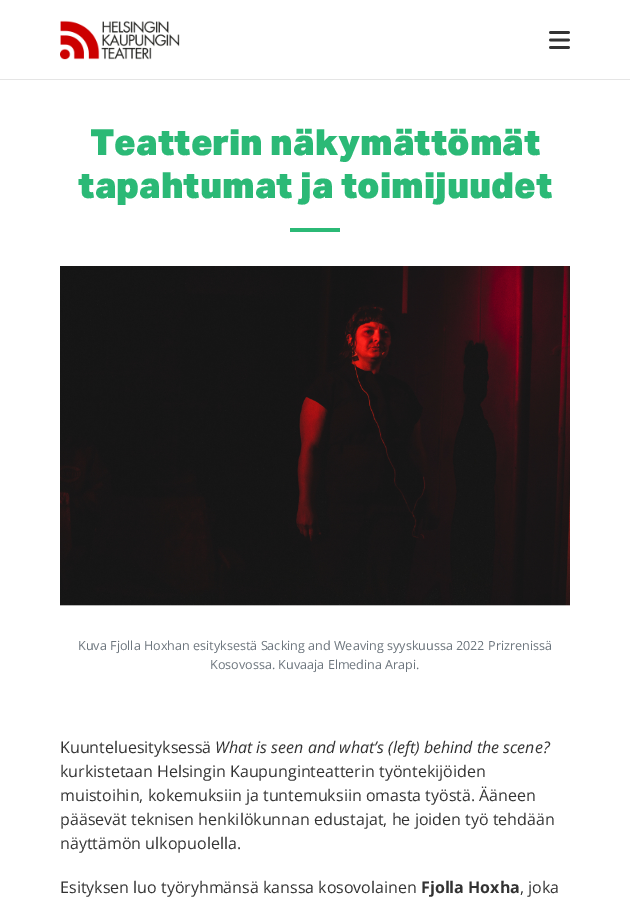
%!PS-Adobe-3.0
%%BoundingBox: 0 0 630 910
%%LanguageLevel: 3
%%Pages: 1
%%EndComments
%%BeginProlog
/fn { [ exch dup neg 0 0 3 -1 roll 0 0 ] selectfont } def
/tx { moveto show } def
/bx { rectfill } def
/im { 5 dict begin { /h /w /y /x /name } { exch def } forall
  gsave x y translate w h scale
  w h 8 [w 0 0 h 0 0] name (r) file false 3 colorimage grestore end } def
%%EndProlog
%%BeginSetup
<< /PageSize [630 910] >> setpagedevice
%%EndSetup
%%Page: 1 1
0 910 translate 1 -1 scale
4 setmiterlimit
1 setgray
0 0 630 910 bx
0.898 setgray
0 79 630 1 bx
(image0.raw) 60 20 120 40 im
(image1.raw) 549 31 21 18 im
/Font-Black 36 fn
0.169 0.725 0.463 setrgbcolor
(Teatterin näkymättömät) 90 155 tx
(tapahtumat ja toimijuudet) 78 198 tx
290 228 50 4 bx
(image2.raw) 60 266 510 340 im
/OpenSans-Regular 12.6 fn
0.424 0.459 0.49 setrgbcolor
(Kuva Fjolla Hoxhan esityksestä Sacking and Weaving syyskuussa 2022 Prizrenissä) 78 650 tx
(Kosovossa. Kuvaaja Elmedina Arapi.) 210 669 tx
/OpenSans-Regular 16 fn
0.2 setgray
(Kuunteluesityksessä) 60 753 tx
/OpenSans-Italic 16 fn
(What is seen and what’s \(left\) behind the scene?) 215 753 tx
/OpenSans-Regular 16 fn
(kurkistetaan Helsingin Kaupunginteatterin työntekijöiden) 60 777 tx
(muistoihin, kokemuksiin ja tuntemuksiin omasta työstä. Ääneen) 60 801 tx
(pääsevät teknisen henkilökunnan edustajat, he joiden työ tehdään) 60 825 tx
(näyttämön ulkopuolella.) 60 849 tx
(Esityksen luo työryhmänsä kanssa kosovolainen) 60 893 tx
/OpenSans-Bold 16 fn
(Fjolla Hoxha) 421 893 tx
/OpenSans-Regular 16 fn
(, joka) 520 893 tx
showpage
%%EOF
